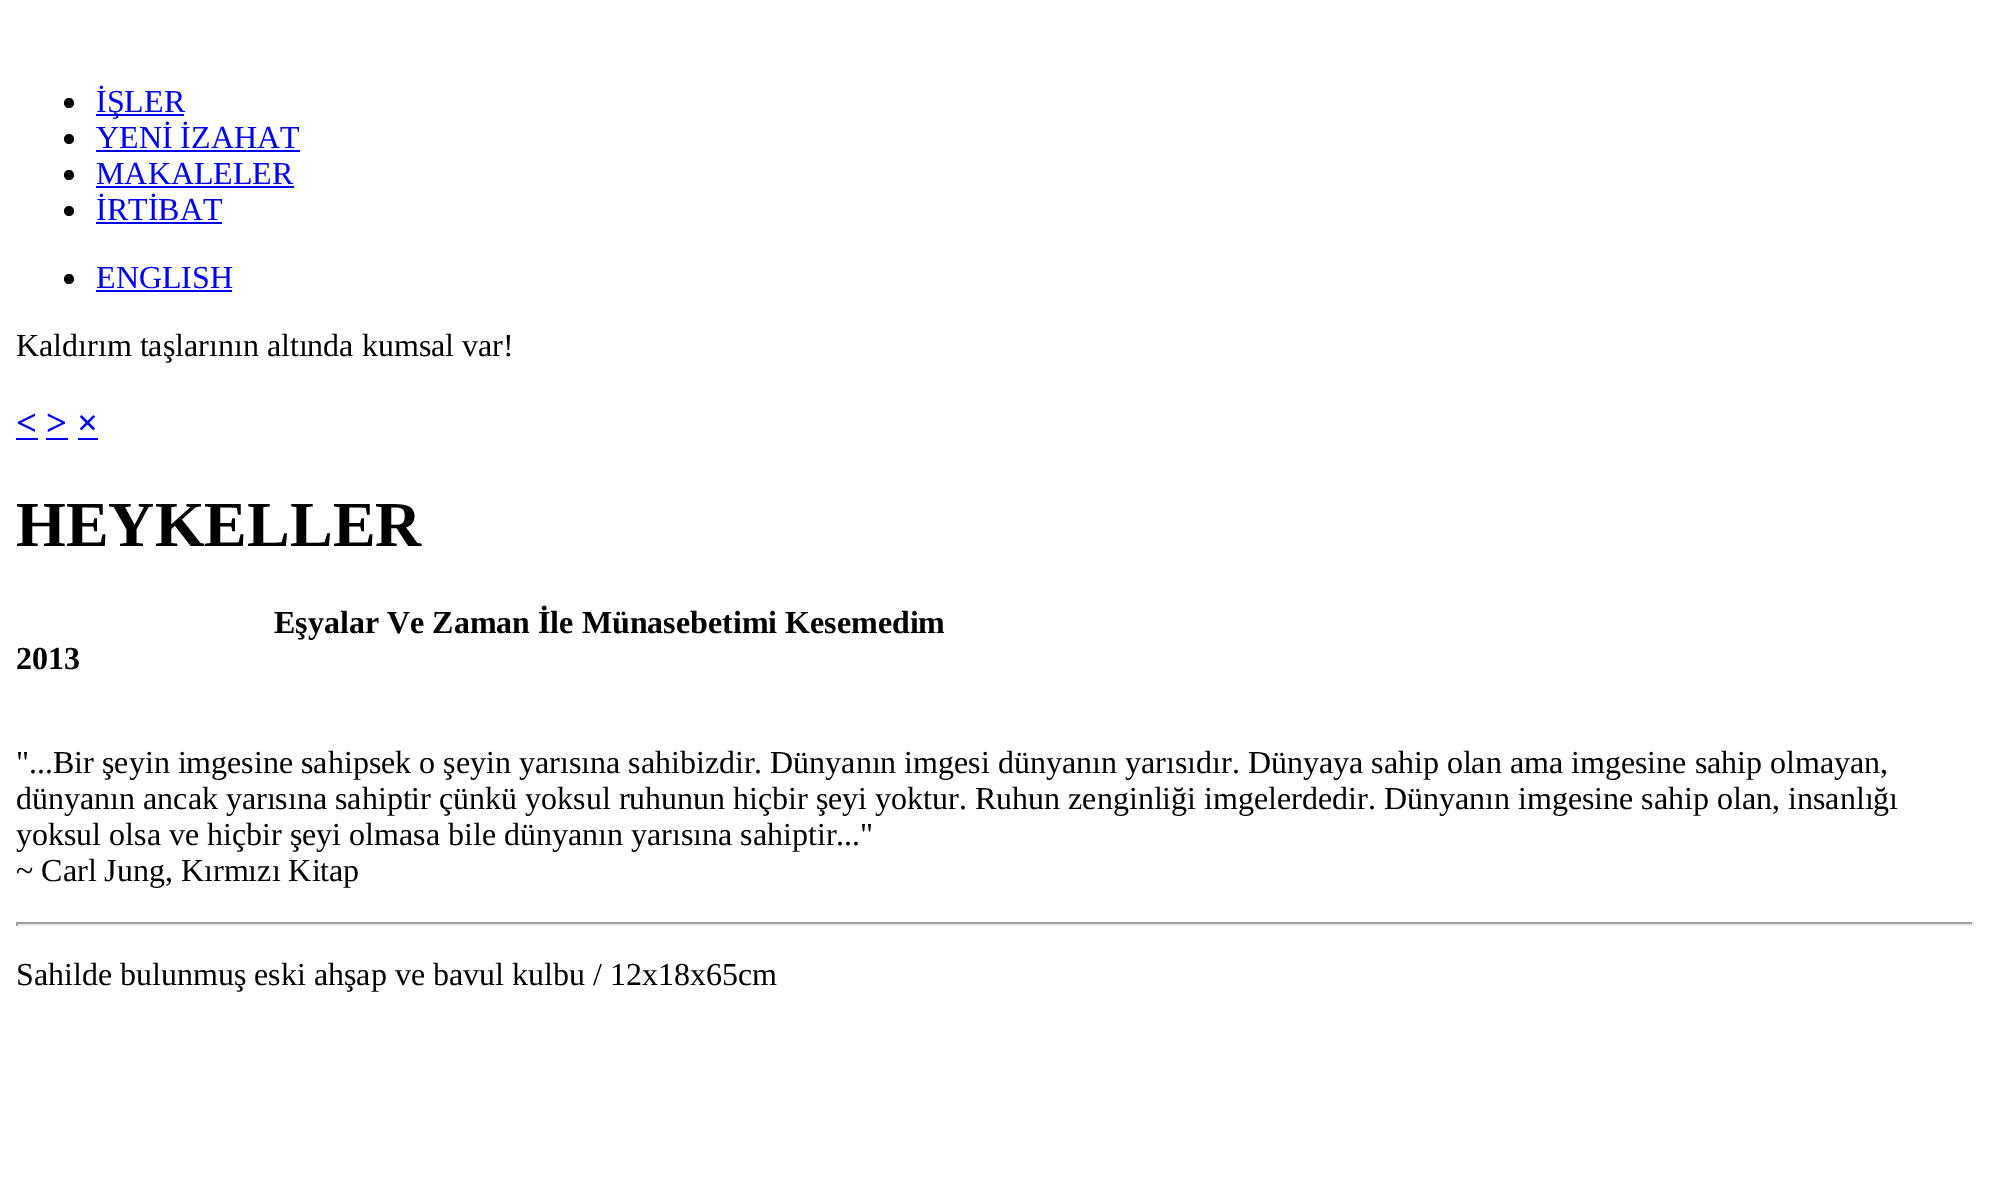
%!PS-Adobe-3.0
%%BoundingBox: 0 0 1990 1186
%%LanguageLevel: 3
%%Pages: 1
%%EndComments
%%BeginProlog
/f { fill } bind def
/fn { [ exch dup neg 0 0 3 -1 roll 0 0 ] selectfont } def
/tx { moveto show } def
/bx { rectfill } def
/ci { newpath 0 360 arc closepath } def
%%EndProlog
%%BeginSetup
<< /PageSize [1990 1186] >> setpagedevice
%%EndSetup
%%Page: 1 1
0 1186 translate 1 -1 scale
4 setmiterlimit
1 setgray
0 0 1990 1186 bx
0 setgray
69 103 5 ci f
0 0 0.933 setrgbcolor
96 114 88 2 bx
/LiberationSerif-Regular 32 fn
(İŞLER) 96 112 tx
0 setgray
69 139 5 ci f
0 0 0.933 setrgbcolor
(YENİ İZAHAT) 96 148 tx
96 150 204 2 bx
0 setgray
69 175 5 ci f
0 0 0.933 setrgbcolor
(MAKALELER) 96 184 tx
96 186 198 2 bx
0 setgray
69 211 5 ci f
0 0 0.933 setrgbcolor
(İRTİBAT) 96 220 tx
96 222 126 2 bx
0 setgray
69 279 5 ci f
0 0 0.933 setrgbcolor
(ENGLISH) 96 288 tx
96 290 136 2 bx
0 setgray
(Kaldırım taşlarının altında kumsal var!) 16 356 tx
/LiberationSerif-Bold 37 fn
0 0 0.933 setrgbcolor
(< > ×) 16 435 tx
16 438 22 2 bx
46 438 22 2 bx
78 438 20 2 bx
/LiberationSerif-Bold 64 fn
0 setgray
(HEYKELLER) 16 546 tx
/LiberationSerif-Bold 32 fn
(Eşyalar Ve Zaman İle Münasebetimi Kesemedim) 274 633 tx
(2013) 16 669 tx
/LiberationSerif-Regular 32 fn
("...Bir şeyin imgesine sahipsek o şeyin yarısına sahibizdir. Dünyanın imgesi dünyanın yarısıdır. Dünyaya sahip olan ama imgesine sahip olmayan,) 16 773 tx
(dünyanın ancak yarısına sahiptir çünkü yoksul ruhunun hiçbir şeyi yoktur. Ruhun zenginliği imgelerdedir. Dünyanın imgesine sahip olan, insanlığı) 16 809 tx
(yoksul olsa ve hiçbir şeyi olmasa bile dünyanın yarısına sahiptir...") 16 845 tx
(~ Carl Jung, Kırmızı Kitap) 16 881 tx
0.624 setgray
16 922 1958 2 bx
0.933 setgray
1972 922 2 4 bx
16 924 1958 2 bx
0.624 setgray
16 922 2 4 bx
0 setgray
(Sahilde bulunmuş eski ahşap ve bavul kulbu / 12x18x65cm) 16 985 tx
showpage
%%EOF
